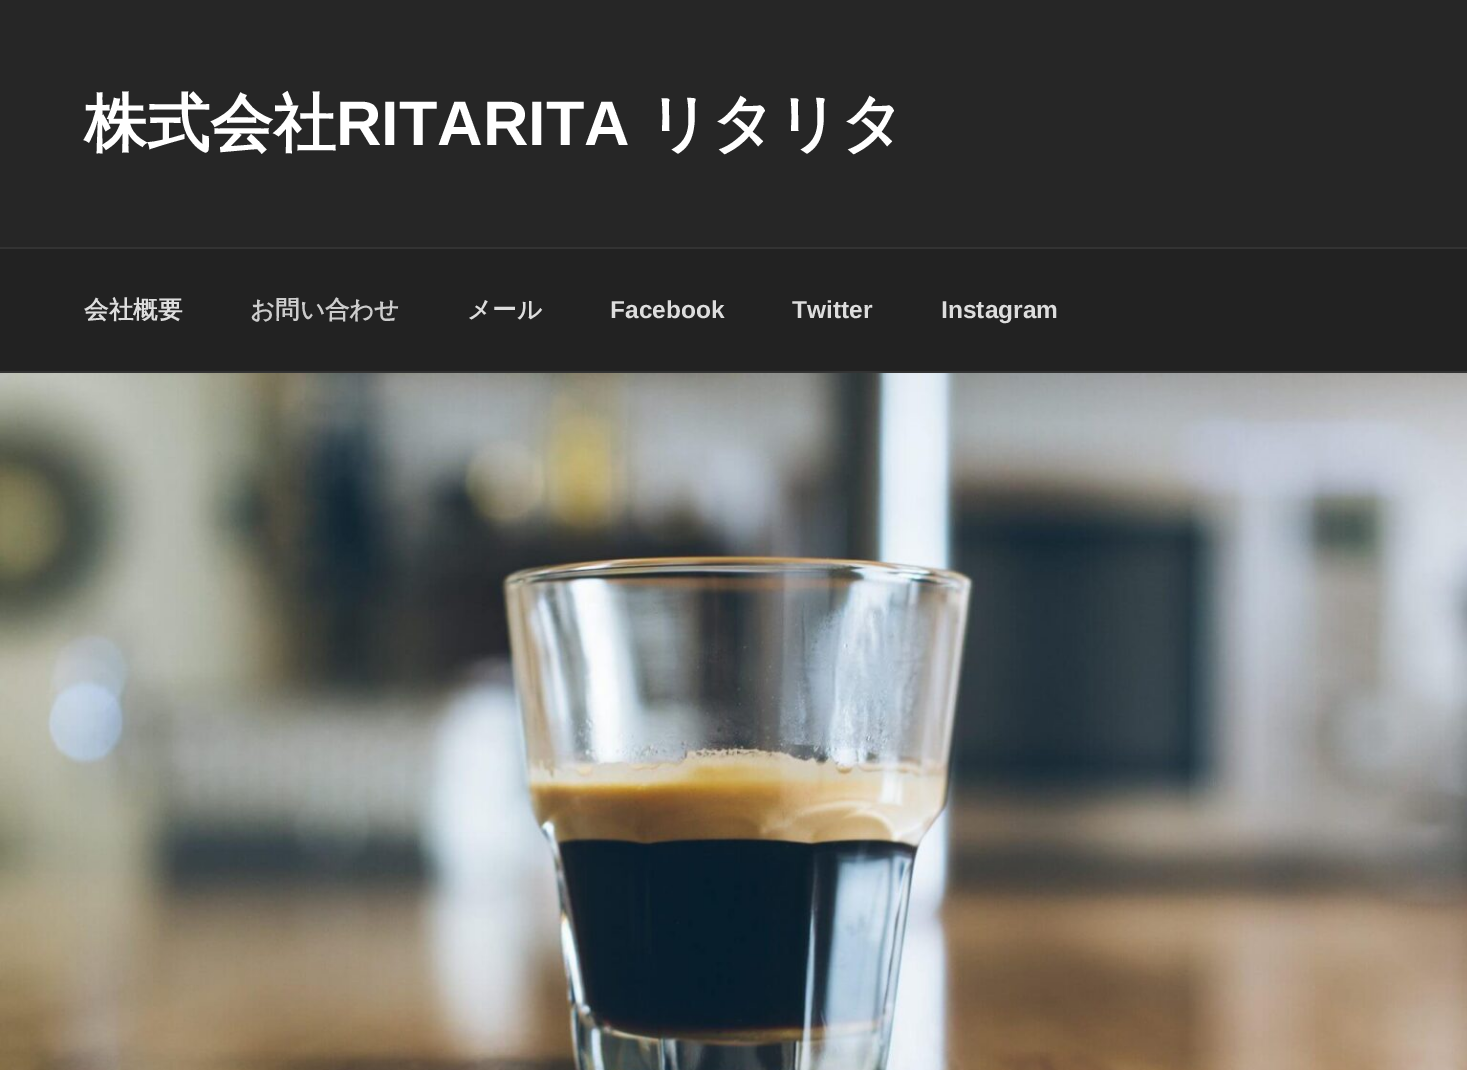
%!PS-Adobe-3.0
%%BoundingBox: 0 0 1467 1070
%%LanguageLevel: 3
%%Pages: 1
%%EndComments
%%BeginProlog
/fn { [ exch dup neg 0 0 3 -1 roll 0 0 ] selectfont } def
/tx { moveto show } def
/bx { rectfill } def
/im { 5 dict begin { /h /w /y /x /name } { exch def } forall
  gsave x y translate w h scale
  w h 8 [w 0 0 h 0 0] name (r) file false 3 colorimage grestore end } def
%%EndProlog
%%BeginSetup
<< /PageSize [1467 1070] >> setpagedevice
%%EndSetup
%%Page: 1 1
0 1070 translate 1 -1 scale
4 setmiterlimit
1 setgray
0 0 1467 1070 bx
0.149 setgray
0 0 1467 247 bx
/WenQuanYiZenHei-Bold 63 fn
1 setgray
(株式会社) 84 145 tx
/LiberationSans-Bold 63 fn
(RITARITA) 336 145 tx
/WenQuanYiZenHei-Bold 63 fn
(リタリタ) 647 145 tx
0.133 setgray
0 249 1467 122 bx
0.2 setgray
0 247 1467 2 bx
0 371 1467 2 bx
/WenQuanYiZenHei-Bold 24.5 fn
0.867 setgray
(会社概要) 84 318 tx
0.8 setgray
(お問い合わせ) 250 318 tx
0.867 setgray
(メール) 467 318 tx
/LiberationSans-Bold 24.5 fn
(Facebook) 610 318 tx
(Twitter) 792 318 tx
(Instagram) 941 318 tx
(image0.raw) 0 373 1467 697 im
showpage
%%EOF
